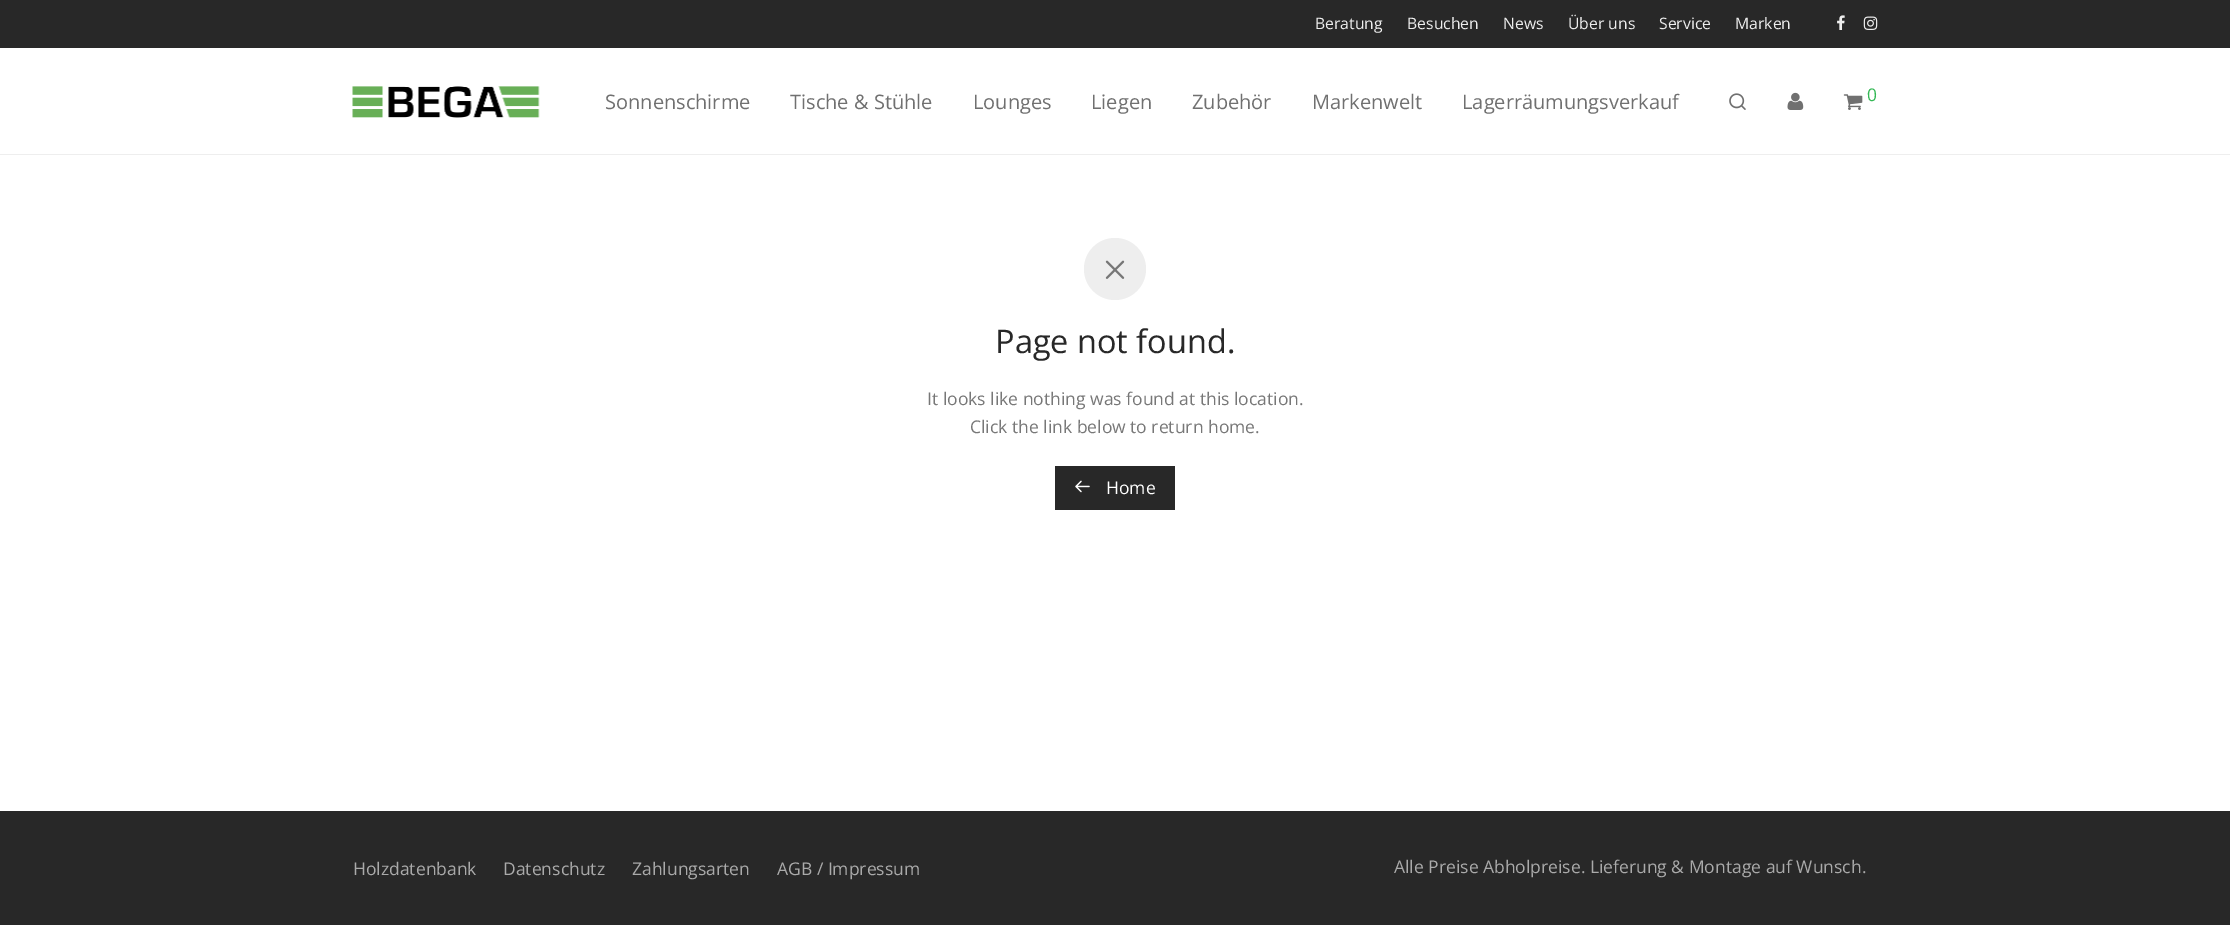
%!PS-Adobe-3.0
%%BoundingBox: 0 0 2230 925
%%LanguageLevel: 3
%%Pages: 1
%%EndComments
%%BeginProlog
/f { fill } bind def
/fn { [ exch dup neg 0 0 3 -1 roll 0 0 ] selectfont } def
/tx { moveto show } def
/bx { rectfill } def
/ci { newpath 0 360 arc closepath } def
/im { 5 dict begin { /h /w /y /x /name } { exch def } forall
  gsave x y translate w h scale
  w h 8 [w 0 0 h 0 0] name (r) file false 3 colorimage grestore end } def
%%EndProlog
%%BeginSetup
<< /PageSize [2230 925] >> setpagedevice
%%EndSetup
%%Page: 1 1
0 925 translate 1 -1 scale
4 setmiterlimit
1 setgray
0 0 2230 925 bx
0.157 setgray
0 0 2230 48 bx
/OpenSans-Regular 15.75 fn
0.933 setgray
(Beratung) 1315 29 tx
(Besuchen) 1407 29 tx
(News) 1503 29 tx
(Über uns) 1568 29 tx
(Service) 1659 29 tx
(Marken) 1735 29 tx
(image0.raw) 1837 15 8 15 im
(image1.raw) 1863 16 15 14 im
0 154 2230 1 bx
(image2.raw) 352 86 188 32 im
/OpenSans-Regular 20 fn
0.439 setgray
(Sonnenschirme) 605 109 tx
(Tische & Stühle) 790 109 tx
(Lounges) 973 109 tx
(Liegen) 1091 109 tx
(Zubehör) 1192 109 tx
(Markenwelt) 1312 109 tx
(Lagerräumungsverkauf) 1462 109 tx
(image3.raw) 1729 93 17 17 im
(image4.raw) 1787 92 17 18 im
(image5.raw) 1843 94 20 16 im
/OpenSans-Regular 17.5 fn
0.204 0.722 0.333 setrgbcolor
(0) 1867 101 tx
0.933 setgray
1115 269 31 ci f
(image6.raw) 1105 260 20 19 im
/OpenSans-Regular 32.5 fn
0.157 setgray
(Page not found.) 995 353 tx
/OpenSans-Regular 17.5 fn
0.467 setgray
(It looks like nothing was found at this location.) 927 405 tx
(Click the link below to return home.) 970 433 tx
0.157 setgray
1055 466 120 44 bx
(image7.raw) 1075 480 15 13 im
1 setgray
(Home) 1106 494 tx
0.157 setgray
0 811 2230 114 bx
0.667 setgray
(Holzdatenbank) 353 875 tx
(Datenschutz) 503 875 tx
(Zahlungsarten) 632 875 tx
(AGB / Impressum) 777 875 tx
(Alle Preise Abholpreise. Lieferung & Montage auf Wunsch.) 1394 873 tx
showpage
%%EOF
